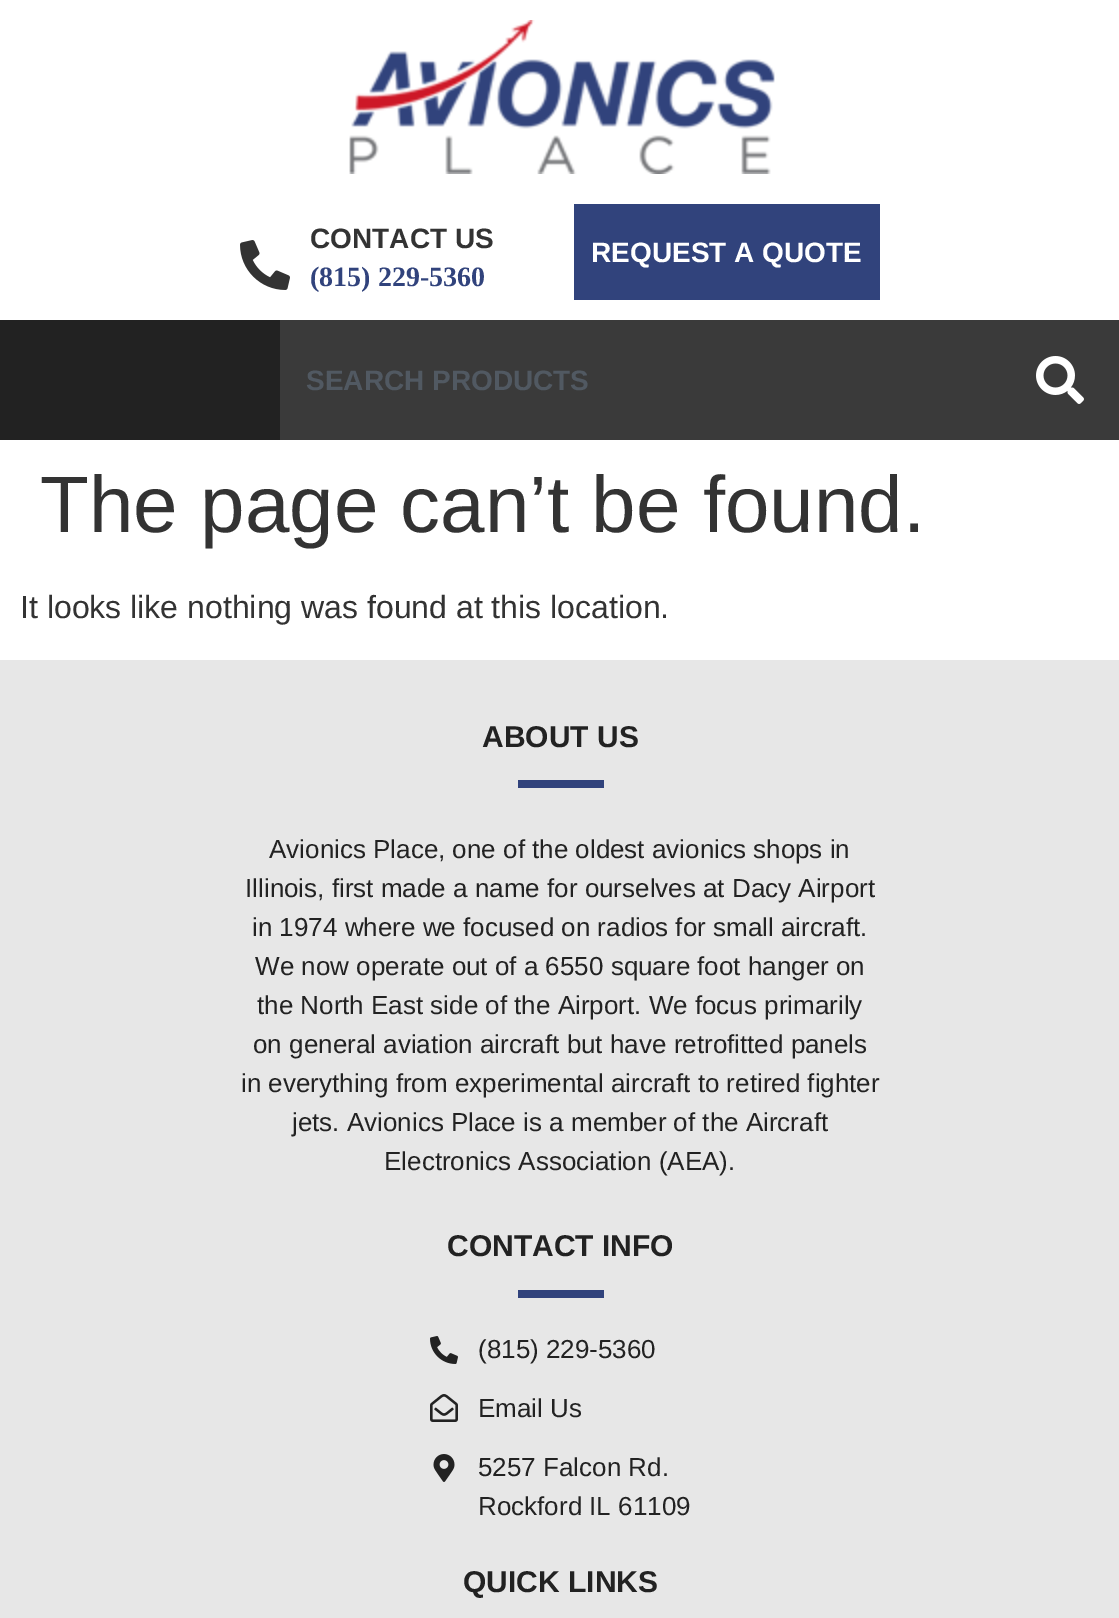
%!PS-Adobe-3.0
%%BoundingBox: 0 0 1119 1618
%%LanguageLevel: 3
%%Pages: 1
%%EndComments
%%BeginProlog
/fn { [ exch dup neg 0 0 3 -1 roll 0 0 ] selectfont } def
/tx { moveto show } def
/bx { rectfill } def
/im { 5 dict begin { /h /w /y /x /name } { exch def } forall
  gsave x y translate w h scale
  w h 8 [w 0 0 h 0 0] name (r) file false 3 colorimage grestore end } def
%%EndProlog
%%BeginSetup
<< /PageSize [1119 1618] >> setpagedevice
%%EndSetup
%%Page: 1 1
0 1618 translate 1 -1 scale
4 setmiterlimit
1 setgray
0 0 1119 1618 bx
(image0.raw) 349 20 426 154 im
(image1.raw) 240 240 50 50 im
/LiberationSans-Bold 28 fn
0.2 setgray
(CONTACT US) 310 248 tx
/LiberationSerif-Bold 28 fn
0.192 0.263 0.486 setrgbcolor
(\(815\) 229-5360) 310 286 tx
574 204 306 96 bx
/LiberationSans-Bold 28 fn
1 setgray
(REQUEST A QUOTE) 591 262 tx
0.133 setgray
0 320 280 120 bx
0.227 setgray
280 320 839 120 bx
0.318 0.349 0.384 setrgbcolor
(SEARCH PRODUCTS) 306 390 tx
(image2.raw) 1036 356 48 48 im
/LiberationSans-Regular 80 fn
0.2 setgray
(The page can’t be found.) 40 532 tx
/LiberationSans-Regular 32 fn
(It looks like nothing was found at this location.) 20 618 tx
0.906 setgray
0 660 1119 958 bx
/LiberationSans-Bold 30 fn
0.133 setgray
(ABOUT US) 482 747 tx
0.192 0.263 0.486 setrgbcolor
518 780 86 8 bx
/LiberationSans-Regular 26 fn
0.133 setgray
(Avionics Place, one of the oldest avionics shops in) 269 858 tx
(Illinois, first made a name for ourselves at Dacy Airport) 245 897 tx
(in 1974 where we focused on radios for small aircraft.) 252 936 tx
(We now operate out of a 6550 square foot hanger on) 255 975 tx
(the North East side of the Airport. We focus primarily) 257 1014 tx
(on general aviation aircraft but have retrofitted panels) 253 1053 tx
(in everything from experimental aircraft to retired fighter) 241 1092 tx
(jets. Avionics Place is a member of the Aircraft) 292 1131 tx
(Electronics Association \(AEA\).) 384 1170 tx
/LiberationSans-Bold 30 fn
(CONTACT INFO) 447 1256 tx
0.192 0.263 0.486 setrgbcolor
518 1290 86 8 bx
(image3.raw) 430 1336 28 28 im
/LiberationSans-Regular 26 fn
0.133 setgray
(\(815\) 229-5360) 478 1358 tx
(image4.raw) 430 1394 28 28 im
(Email Us) 478 1417 tx
(image5.raw) 433 1454 22 28 im
(5257 Falcon Rd.) 478 1476 tx
(Rockford IL 61109) 478 1515 tx
/LiberationSans-Bold 30 fn
(QUICK LINKS) 463 1592 tx
showpage
%%EOF
